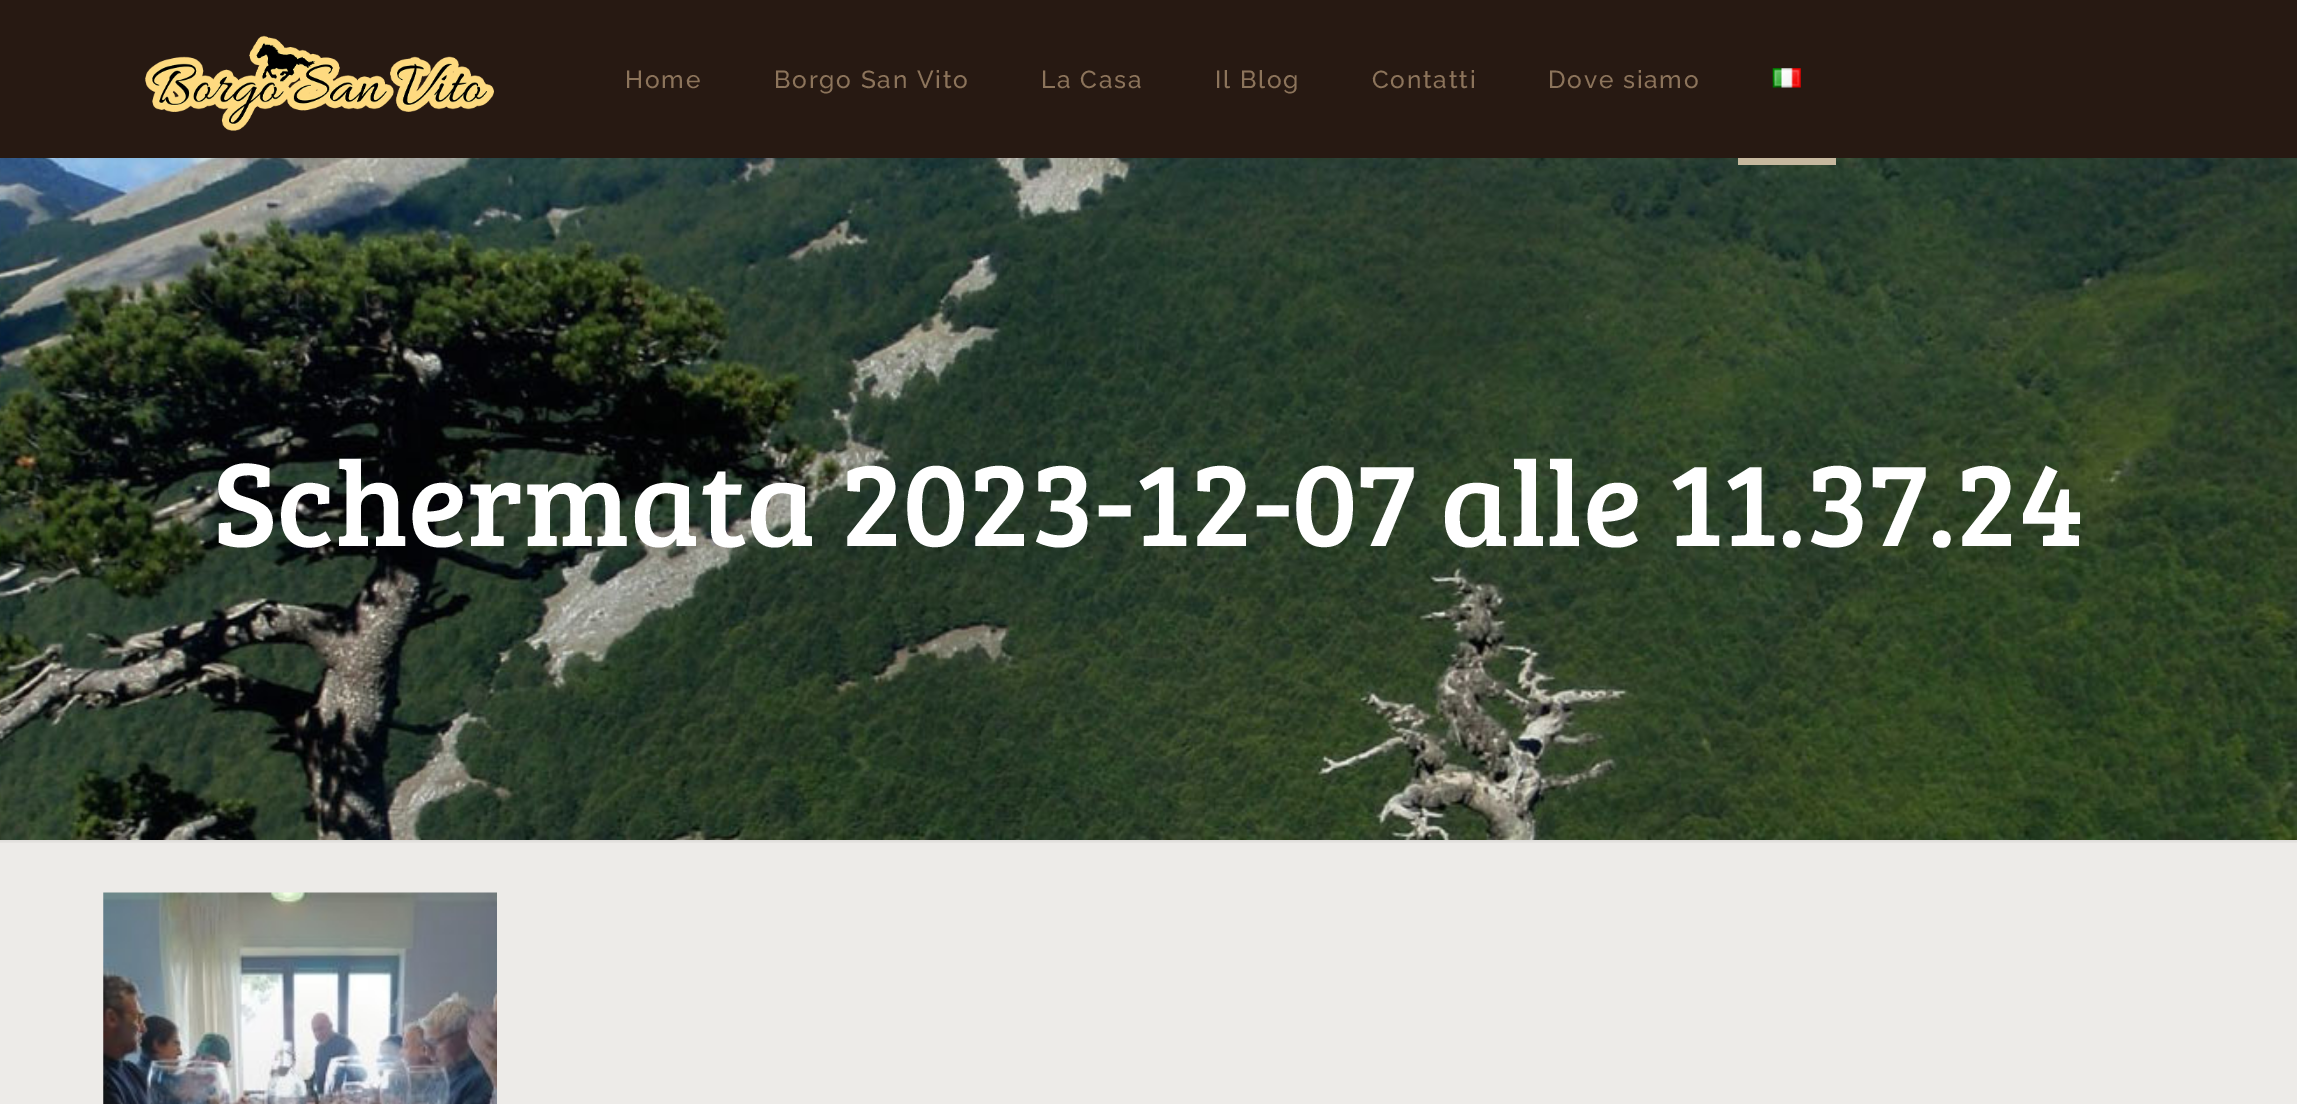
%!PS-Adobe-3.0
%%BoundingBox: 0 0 2297 1104
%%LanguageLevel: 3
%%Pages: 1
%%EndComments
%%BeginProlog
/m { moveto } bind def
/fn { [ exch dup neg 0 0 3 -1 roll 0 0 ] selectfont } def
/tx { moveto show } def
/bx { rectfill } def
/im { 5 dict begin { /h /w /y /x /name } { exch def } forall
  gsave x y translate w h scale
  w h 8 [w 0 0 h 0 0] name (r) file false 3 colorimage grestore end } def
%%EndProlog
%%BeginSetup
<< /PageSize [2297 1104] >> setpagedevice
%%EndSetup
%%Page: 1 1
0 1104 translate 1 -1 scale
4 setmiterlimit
0.929 0.922 0.91 setrgbcolor
0 0 2297 1104 bx
(image0.raw) 0 158 2297 682 im
0.153 0.098 0.071 setrgbcolor
0 0 2297 158 bx
(image1.raw) 145 35 349 96 im
/Raleway-Medium 24.5 fn
0.549 0.455 0.357 setrgbcolor
625 88 m 1.75 0 (Home) ashow
774 88 m 1.75 0 (Borgo San Vito) ashow
1041 88 m 1.75 0 (La Casa) ashow
1215 88 m 1.75 0 (Il Blog) ashow
1372 88 m 1.75 0 (Contatti) ashow
1548 88 m 1.75 0 (Dove siamo) ashow
(image2.raw) 1772 68 29 20 im
0.776 0.722 0.62 setrgbcolor
1738 158 98 7 bx
/BreeSerif-Regular 122.5 fn
1 setgray
(Schermata 2023-12-07 alle 11.37.24) 213 546 tx
(image3.raw) 0 840 2297 3 im
(image4.raw) 103 892 394 212 im
showpage
%%EOF
